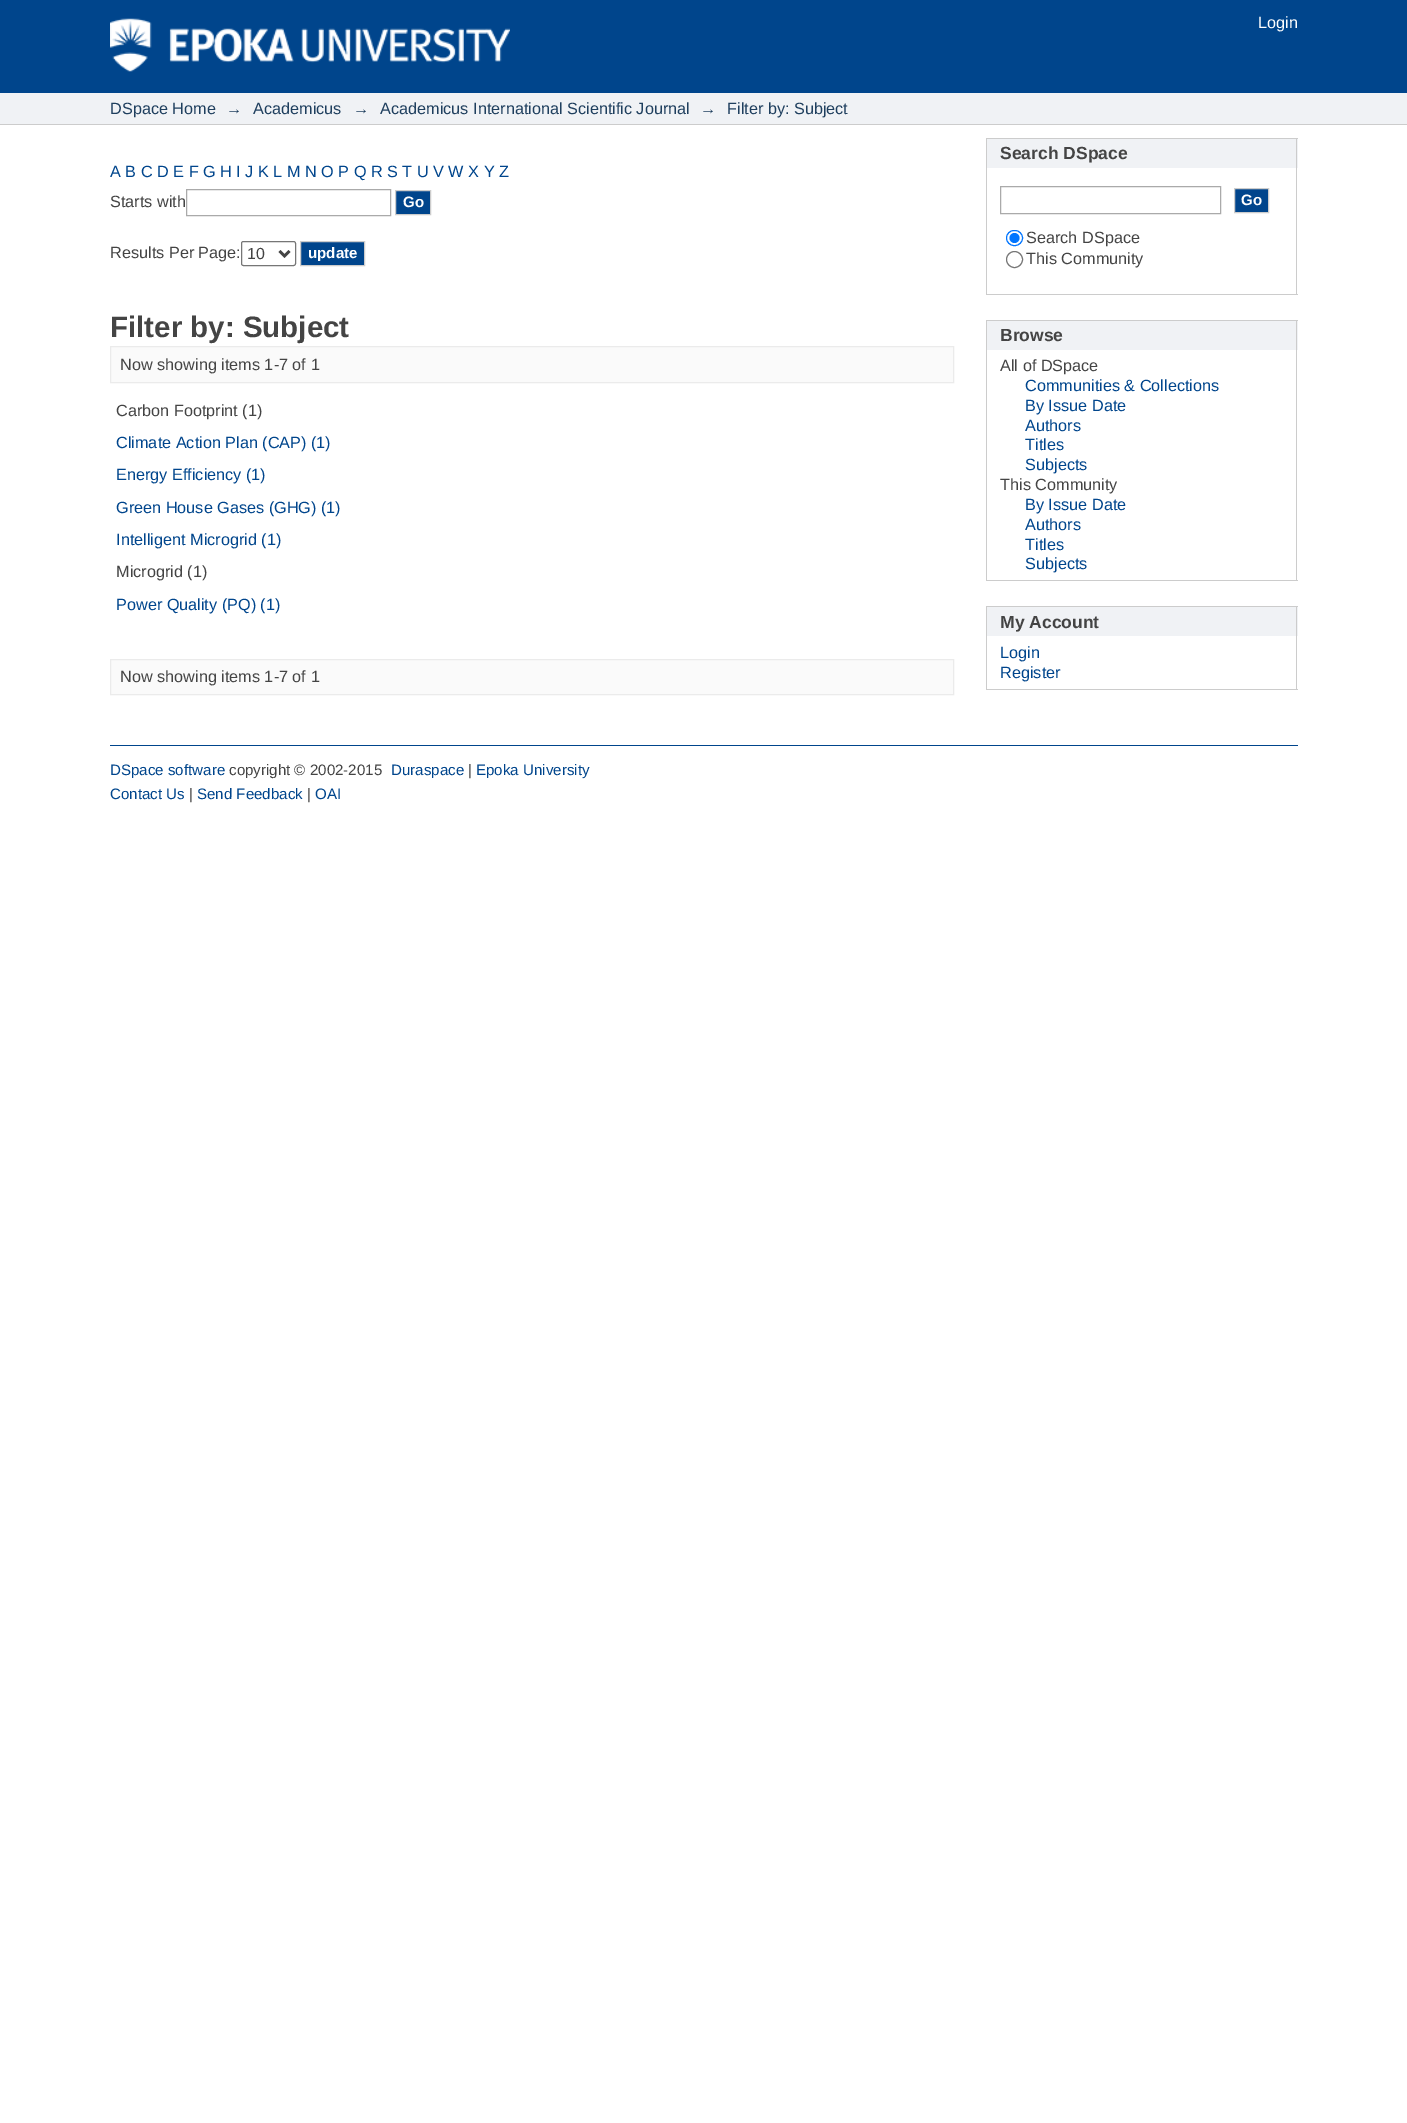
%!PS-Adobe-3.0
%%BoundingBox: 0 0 1407 2123
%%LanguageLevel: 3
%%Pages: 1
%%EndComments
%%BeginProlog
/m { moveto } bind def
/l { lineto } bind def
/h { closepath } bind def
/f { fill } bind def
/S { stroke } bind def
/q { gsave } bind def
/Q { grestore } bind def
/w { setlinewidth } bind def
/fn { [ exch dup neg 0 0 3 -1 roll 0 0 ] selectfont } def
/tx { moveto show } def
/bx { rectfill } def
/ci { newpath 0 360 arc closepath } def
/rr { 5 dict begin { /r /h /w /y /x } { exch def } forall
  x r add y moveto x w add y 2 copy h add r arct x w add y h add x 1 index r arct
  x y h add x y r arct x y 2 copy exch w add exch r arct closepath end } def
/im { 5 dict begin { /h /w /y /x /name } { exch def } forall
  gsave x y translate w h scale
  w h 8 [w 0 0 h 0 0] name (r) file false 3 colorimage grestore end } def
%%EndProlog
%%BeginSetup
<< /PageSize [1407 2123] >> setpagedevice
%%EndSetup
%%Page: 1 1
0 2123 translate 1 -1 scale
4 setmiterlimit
1 setgray
0 0 1407 2123 bx
0 0.271 0.549 setrgbcolor
0 0 1407 93 bx
(image0.raw) 110 18 400 54 im
/LiberationSans-Regular 16.25 fn
1 setgray
(Login) 1258 28 tx
0.941 0.949 0.961 setrgbcolor
0 93 1407 31 bx
0.8 setgray
0 124 1407 1 bx
0.122 0.247 0.369 setrgbcolor
(DSpace Home) 110 114 tx
(→) 226 114 tx
(Academicus) 253 114 tx
(→) 353 114 tx
(Academicus International Scientific Journal) 380 114 tx
(→) 700 114 tx
(Filter by: Subject) 727 114 tx
0 0.271 0.549 setrgbcolor
(A B C D E F G H I J K L M N O P Q R S T U V W X Y Z) 110 177 tx
0.267 setgray
(Starts with) 110 207 tx
0.667 setgray
186.5 189.5 204 26 rectstroke
0 0.271 0.549 setrgbcolor
395.5 190.5 m 430.5 190.5 l 430.5 214.5 l 395.5 214.5 l h q f Q
0.8 setgray
S
/LiberationSans-Bold 15.1 fn
1 setgray
(Go) 403 207 tx
/LiberationSans-Regular 16.25 fn
0.267 setgray
(Results Per Page:) 110 258 tx
0.463 setgray
241.5 241.5 54 24 2 rr S
0.267 setgray
2.5 w
279.5 251 m 284.5 256 l 289.5 251 l S
/LiberationSans-Regular 16 fn
(10) 247 259 tx
0 0.271 0.549 setrgbcolor
300.5 241.5 m 364.5 241.5 l 364.5 265.5 l 300.5 265.5 l h q f Q
0.8 setgray
1 w
S
/LiberationSans-Bold 15.1 fn
1 setgray
(update) 308 258 tx
/LiberationSans-Bold 29.5 fn
0.267 setgray
(Filter by: Subject) 110 337 tx
0.98 setgray
110.5 346.5 m 953.5 346.5 l 953.5 382.5 l 110.5 382.5 l h q f Q
0.922 setgray
S
/LiberationSans-Regular 16.25 fn
0.267 setgray
(Now showing items 1-7 of 1) 120 370 tx
(Carbon Footprint \(1\)) 116 416 tx
0 0.271 0.549 setrgbcolor
(Climate Action Plan \(CAP\) \(1\)) 116 448 tx
(Energy Efficiency \(1\)) 116 480 tx
(Green House Gases \(GHG\) \(1\)) 116 513 tx
(Intelligent Microgrid \(1\)) 116 545 tx
0.267 setgray
(Microgrid \(1\)) 116 577 tx
0 0.271 0.549 setrgbcolor
(Power Quality \(PQ\) \(1\)) 116 610 tx
0.98 setgray
110.5 659.5 m 953.5 659.5 l 953.5 694.5 l 110.5 694.5 l h q f Q
0.922 setgray
S
0.267 setgray
(Now showing items 1-7 of 1) 120 682 tx
0.941 0.949 0.961 setrgbcolor
987 139 311 29 bx
0.8 setgray
986 138 312 1 bx
1296 138 1 157 bx
986 138 1 30 bx
/LiberationSans-Bold 17.5 fn
0.267 setgray
(Search DSpace) 1000 159 tx
0.8 setgray
986 294 312 1 bx
986 168 1 127 bx
0.667 setgray
1000.5 186.5 220 27 rectstroke
0 0.271 0.549 setrgbcolor
1234.5 188.5 m 1268.5 188.5 l 1268.5 212.5 l 1234.5 212.5 l h q f Q
0.8 setgray
S
/LiberationSans-Bold 15.1 fn
1 setgray
(Go) 1241 205 tx
0 0.459 1 setrgbcolor
1006.5 230.5 16 15 7.5 rr S
1014.5 238 5 ci f
/LiberationSans-Regular 16.25 fn
0.267 setgray
(Search DSpace) 1026 243 tx
0.463 setgray
1014.5 259.5 8 ci S
0.267 setgray
(This Community) 1026 264 tx
0.941 0.949 0.961 setrgbcolor
987 321 311 29 bx
0.8 setgray
986 320 312 1 bx
1296 320 1 261 bx
986 320 1 30 bx
/LiberationSans-Bold 17.5 fn
0.267 setgray
(Browse) 1000 341 tx
0.8 setgray
986 580 312 1 bx
986 350 1 231 bx
/LiberationSans-Regular 16.25 fn
0.267 setgray
(All of DSpace) 1000 371 tx
0 0.271 0.549 setrgbcolor
(Communities & Collections) 1025 391 tx
(By Issue Date) 1025 411 tx
(Authors) 1025 431 tx
(Titles) 1025 450 tx
(Subjects) 1025 470 tx
0.267 setgray
(This Community) 1000 490 tx
0 0.271 0.549 setrgbcolor
(By Issue Date) 1025 510 tx
(Authors) 1025 530 tx
(Titles) 1025 550 tx
(Subjects) 1025 569 tx
0.941 0.949 0.961 setrgbcolor
987 607 311 29 bx
0.8 setgray
986 606 312 1 bx
1296 606 1 84 bx
986 606 1 30 bx
/LiberationSans-Bold 17.5 fn
0.267 setgray
(My Account) 1000 628 tx
0.8 setgray
986 689 312 1 bx
986 636 1 54 bx
/LiberationSans-Regular 16.25 fn
0 0.271 0.549 setrgbcolor
(Login) 1000 658 tx
(Register) 1000 678 tx
110 745 1188 1 bx
/LiberationSans-Regular 15.1 fn
(DSpace software) 110 775 tx
0.267 setgray
(copyright © 2002-2015) 229 775 tx
0 0.271 0.549 setrgbcolor
(Duraspace) 391 775 tx
0.267 setgray
(|) 468 775 tx
0 0.271 0.549 setrgbcolor
(Epoka University) 476 775 tx
(Contact Us) 110 799 tx
0.267 setgray
(|) 189 799 tx
0 0.271 0.549 setrgbcolor
(Send Feedback) 197 799 tx
0.267 setgray
(|) 307 799 tx
0 0.271 0.549 setrgbcolor
(OAI) 315 799 tx
showpage
%%EOF
